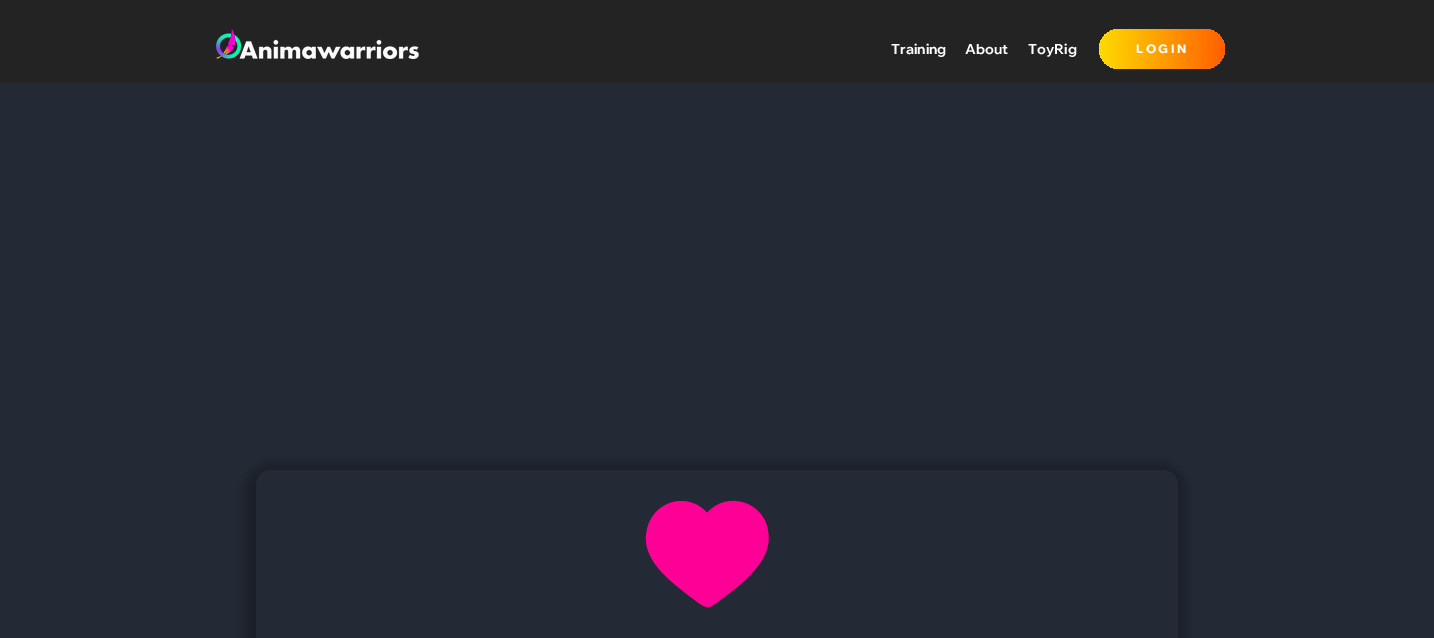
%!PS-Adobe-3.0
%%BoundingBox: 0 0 1434 638
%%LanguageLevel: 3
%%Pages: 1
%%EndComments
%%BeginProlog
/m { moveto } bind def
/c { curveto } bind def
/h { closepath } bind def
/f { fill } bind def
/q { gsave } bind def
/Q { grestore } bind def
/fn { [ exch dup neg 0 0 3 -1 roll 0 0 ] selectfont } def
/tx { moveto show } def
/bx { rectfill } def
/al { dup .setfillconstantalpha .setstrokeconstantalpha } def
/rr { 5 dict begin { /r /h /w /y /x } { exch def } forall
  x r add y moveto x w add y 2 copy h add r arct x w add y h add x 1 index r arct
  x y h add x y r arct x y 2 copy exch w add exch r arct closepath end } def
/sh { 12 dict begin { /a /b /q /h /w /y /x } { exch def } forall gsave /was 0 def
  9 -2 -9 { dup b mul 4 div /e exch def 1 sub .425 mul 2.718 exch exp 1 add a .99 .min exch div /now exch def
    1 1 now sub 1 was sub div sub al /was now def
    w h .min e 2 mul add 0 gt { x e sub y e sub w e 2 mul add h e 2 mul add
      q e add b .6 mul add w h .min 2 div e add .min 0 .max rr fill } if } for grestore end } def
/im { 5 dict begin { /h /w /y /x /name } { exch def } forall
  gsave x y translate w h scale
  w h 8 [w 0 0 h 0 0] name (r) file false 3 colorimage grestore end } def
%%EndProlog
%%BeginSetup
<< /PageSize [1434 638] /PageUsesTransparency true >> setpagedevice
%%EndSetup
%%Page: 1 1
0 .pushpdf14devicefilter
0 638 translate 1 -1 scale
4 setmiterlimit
0.137 0.165 0.212 setrgbcolor
0 0 1434 638 bx
0.141 0.137 0.137 setrgbcolor
0 0 1434 83 bx
(image0.raw) 215 29 204 30 im
/WixMadeforDisplay-Bold 14 fn
1 setgray
(Training) 891 54 tx
(About) 965 54 tx
(ToyRig) 1028 54 tx
q 1099 29 126 40 20 rr clip newpath
<< /ShadingType 2 /ColorSpace /DeviceRGB /Coords [1099 49 1225 49] /Extend [true true] /Function << /FunctionType 2 /Domain [0 1] /C0 [1 0.859 0] /C1 [1 0.373 0] /N 1 >> >> shfill Q
/WixMadeforDisplay-ExtraBold 12 fn
1136 53 m 2.5 0 (LOGIN) ashow
0 setgray
245 464 940 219 24 7 0.31 sh
0.137 0.165 0.212 setrgbcolor
256 470 922 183 15 rr f
1 0 0.592 setrgbcolor
768 531 m 764 502 727 490 707 513 c 689 492 656 500 648 526 c 640 549 656 568 672 582 c 680 589 688 595 696 601 c 707 609 708 609 719 601 c 727 595 735 589 743 582 c 757 569 772 552 768 531 c h eofill
.poppdf14devicefilter showpage
%%EOF
